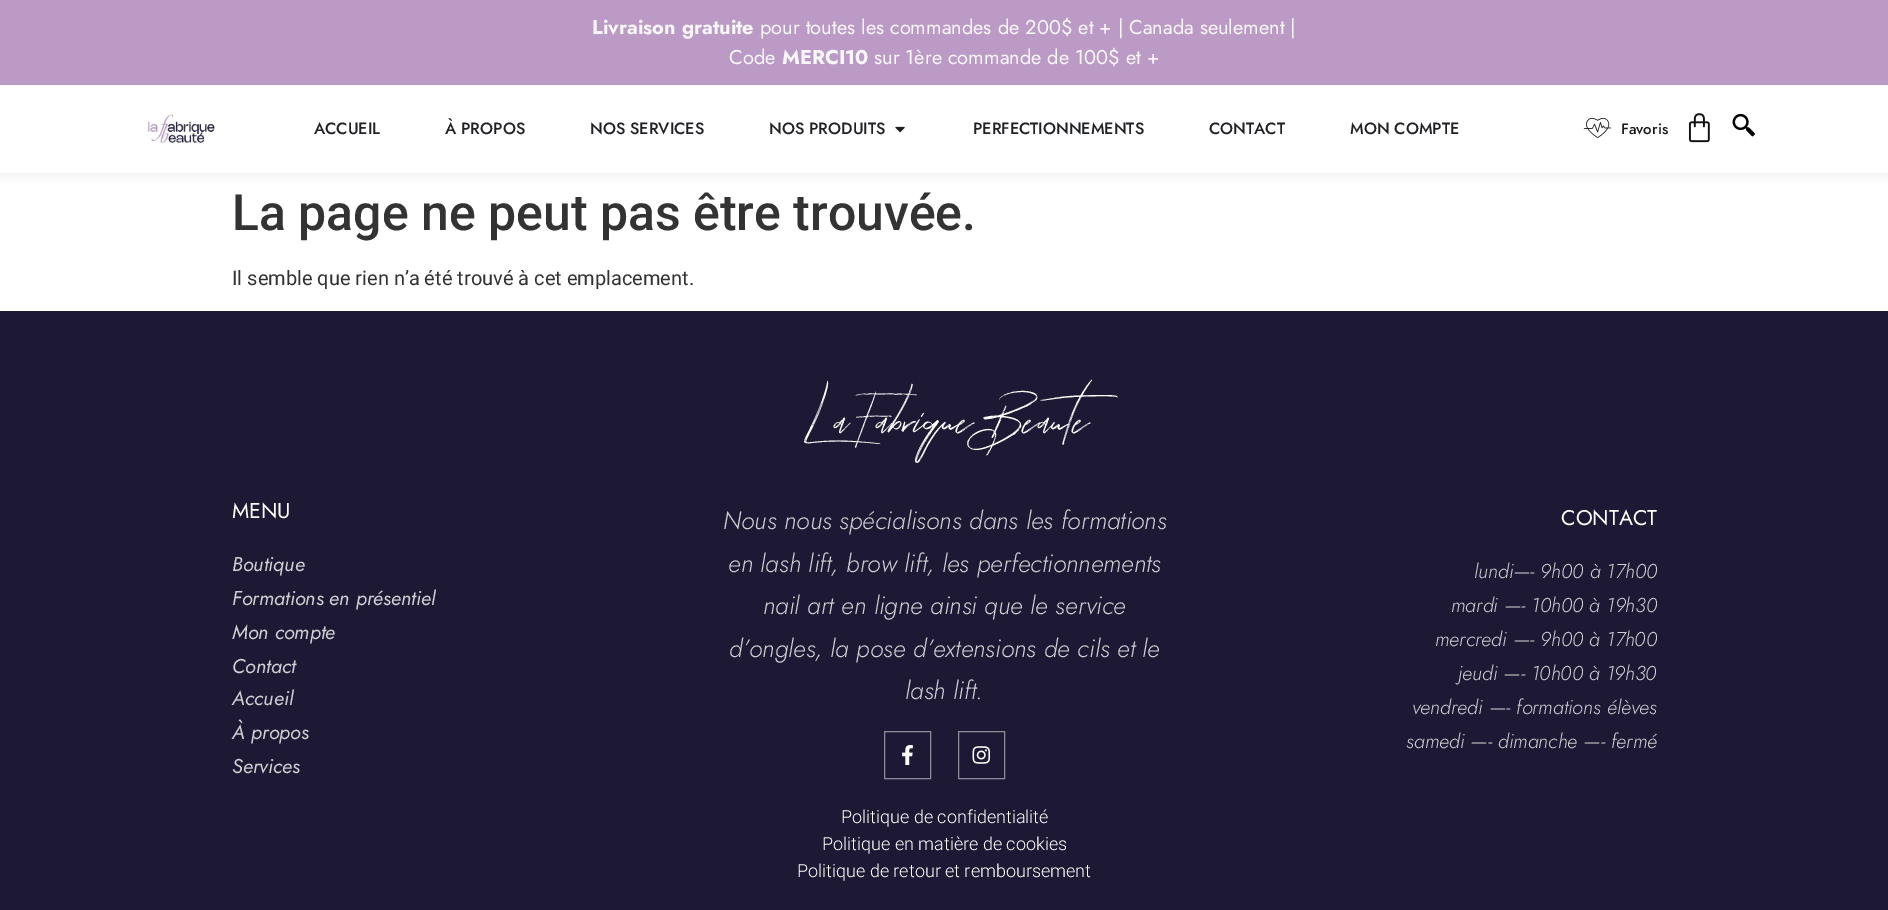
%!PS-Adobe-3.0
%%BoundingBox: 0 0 1888 910
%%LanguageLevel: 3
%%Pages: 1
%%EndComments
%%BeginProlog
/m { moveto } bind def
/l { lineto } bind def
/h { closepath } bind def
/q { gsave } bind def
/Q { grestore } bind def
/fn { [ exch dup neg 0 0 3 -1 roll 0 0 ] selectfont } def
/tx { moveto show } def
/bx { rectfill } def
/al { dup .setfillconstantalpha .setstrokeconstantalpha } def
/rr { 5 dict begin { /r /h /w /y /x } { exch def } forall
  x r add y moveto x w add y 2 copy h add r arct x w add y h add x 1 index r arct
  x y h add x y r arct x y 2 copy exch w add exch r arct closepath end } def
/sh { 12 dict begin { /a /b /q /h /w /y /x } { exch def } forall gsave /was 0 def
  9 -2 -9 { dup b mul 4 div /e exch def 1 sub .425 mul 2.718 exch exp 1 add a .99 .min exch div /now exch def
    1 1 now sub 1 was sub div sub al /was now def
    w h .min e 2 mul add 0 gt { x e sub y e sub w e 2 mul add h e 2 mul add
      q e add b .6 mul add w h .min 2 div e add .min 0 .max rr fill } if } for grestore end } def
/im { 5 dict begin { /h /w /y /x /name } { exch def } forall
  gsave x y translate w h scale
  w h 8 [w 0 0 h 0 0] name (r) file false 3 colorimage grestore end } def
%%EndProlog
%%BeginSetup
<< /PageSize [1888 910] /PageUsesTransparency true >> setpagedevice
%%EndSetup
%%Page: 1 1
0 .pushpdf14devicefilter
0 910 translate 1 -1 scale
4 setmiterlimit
1 setgray
0 0 1888 910 bx
q
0 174 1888 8 rectclip
0 setgray
-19 6 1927 127 0 35.5 0.24 sh
Q
q 0 0 m 1888 0 l 1888 85 l 0 85 l h clip newpath 944 43 translate 1336 60 scale
<< /ShadingType 3 /ColorSpace /DeviceRGB /Coords [0 0 0 0 0 1] /Extend [true true] /Function << /FunctionType 2 /Domain [0 1] /C0 [0.733 0.608 0.773] /C1 [0.733 0.608 0.773] /N 1 >> >> shfill Q
/Jost-Bold 20 fn
0.98 0.969 0.98 setrgbcolor
(Livraison gratuite) 592 34 tx
/Jost-Regular 20 fn
(pour toutes les commandes de 200$ et + | Canada seulement |) 760 34 tx
(Code) 729 64 tx
/Jost-Bold 20 fn
(MERCI10) 782 64 tx
/Jost-Regular 20 fn
(sur 1ère commande de 100$ et +) 874 64 tx
0.953 setgray
0 173 1888 1 bx
(image0.raw) 147 114 68 29 im
/Jost-Medium 16.25 fn
0.122 0.129 0.141 setrgbcolor
(ACCUEIL) 314 134 tx
(À PROPOS) 445 134 tx
(NOS SERVICES) 590 134 tx
(NOS PRODUITS) 769 134 tx
(image1.raw) 895 126 10 7 im
(PERFECTIONNEMENTS) 973 134 tx
(CONTACT) 1209 134 tx
(MON COMPTE) 1350 134 tx
(image2.raw) 1583 117 29 21 im
/Jost-Medium 15 fn
0.098 setgray
(Favoris) 1621 134 tx
(image3.raw) 1688 113 22 30 im
(image4.raw) 1732 113 23 24 im
/Roboto-Medium 50 fn
0.2 setgray
(La page ne peut pas être trouvée.) 232 230 tx
/Roboto-Regular 20 fn
(Il semble que rien n’a été trouvé à cet emplacement.) 232 285 tx
0.114 0.098 0.204 setrgbcolor
0 311 1888 599 bx
/Jost-Regular 21.25 fn
1 setgray
(MENU) 232 518 tx
/Jost-Italic 20 fn
0.816 0.812 0.831 setrgbcolor
(Boutique) 232 571 tx
(Formations en présentiel) 232 605 tx
(Mon compte) 232 639 tx
(Contact) 232 673 tx
(Accueil) 232 705 tx
(À propos) 232 739 tx
(Services) 232 773 tx
/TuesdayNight-Regular 45 fn
1 setgray
(La Fabrique Beaute) 804 434 tx
/Jost-LightItalic 25 fn
0.816 0.812 0.831 setrgbcolor
(Nous nous spécialisons dans les formations) 723 529 tx
(en lash lift, brow lift, les perfectionnements) 728 572 tx
(nail art en ligne ainsi que le service) 763 614 tx
(d’ongles, la pose d’extensions de cils et le) 729 657 tx
(lash lift.) 905 699 tx
0.557 0.549 0.604 setrgbcolor
884.5 731.5 46 47 rectstroke
(image5.raw) 902 745 11 20 im
958.5 731.5 46 47 rectstroke
(image6.raw) 972 746 19 18 im
/Roboto-Light 18 fn
1 setgray
(Politique de confidentialité) 841 823 tx
(Politique en matière de cookies) 822 850 tx
(Politique de retour et remboursement) 797 877 tx
/Jost-Regular 21.25 fn
(CONTACT) 1561 525 tx
/Jost-LightItalic 20 fn
0.816 0.812 0.831 setrgbcolor
(lundi—- 9h00 à 17h00) 1474 578 tx
(mardi —- 10h00 à 19h30) 1451 612 tx
(mercredi —- 9h00 à 17h00) 1435 646 tx
(jeudi —- 10h00 à 19h30) 1458 680 tx
(vendredi —- formations élèves) 1412 714 tx
(samedi —- dimanche —- fermé) 1406 748 tx
.poppdf14devicefilter showpage
%%EOF
